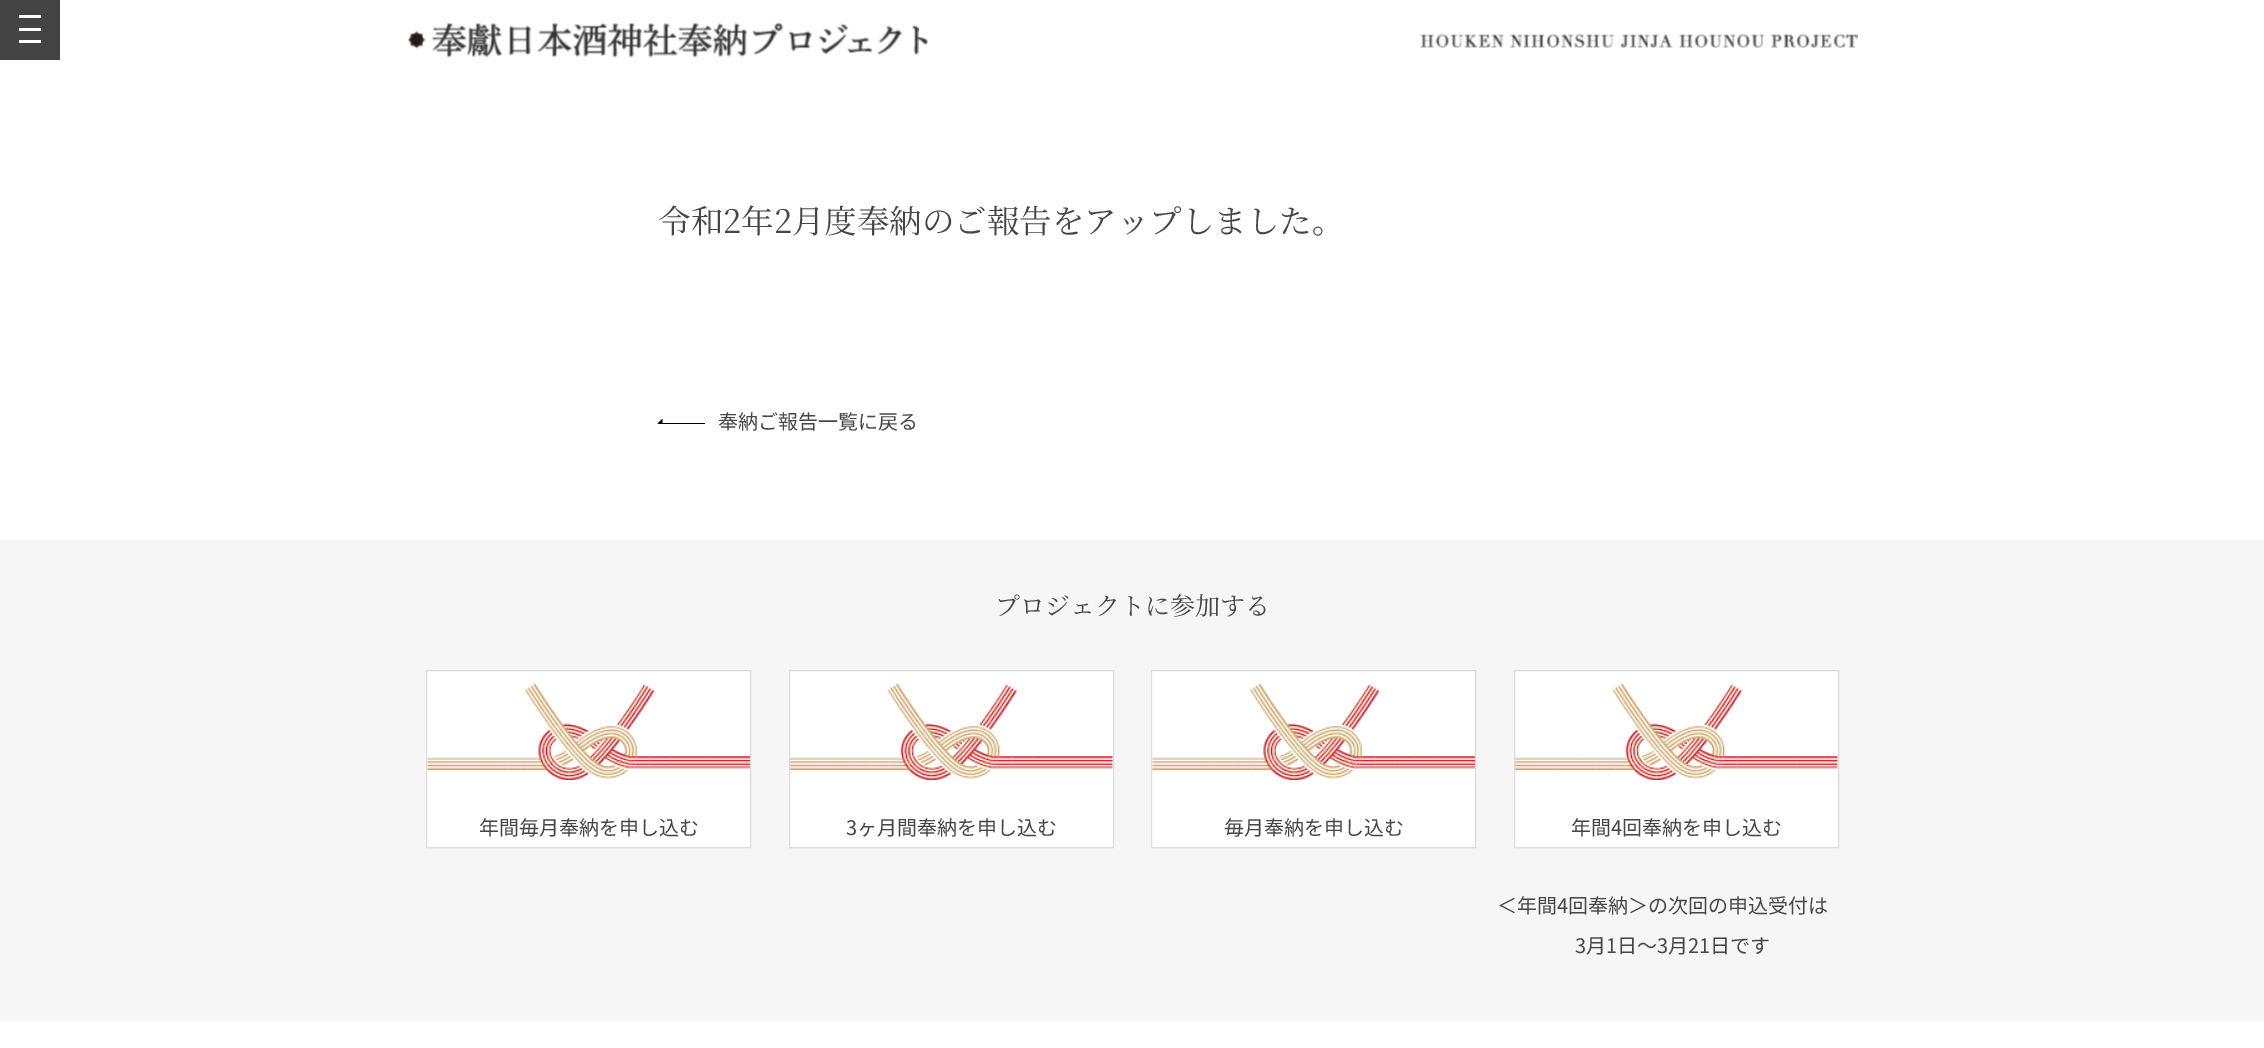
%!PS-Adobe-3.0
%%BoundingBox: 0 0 2264 1048
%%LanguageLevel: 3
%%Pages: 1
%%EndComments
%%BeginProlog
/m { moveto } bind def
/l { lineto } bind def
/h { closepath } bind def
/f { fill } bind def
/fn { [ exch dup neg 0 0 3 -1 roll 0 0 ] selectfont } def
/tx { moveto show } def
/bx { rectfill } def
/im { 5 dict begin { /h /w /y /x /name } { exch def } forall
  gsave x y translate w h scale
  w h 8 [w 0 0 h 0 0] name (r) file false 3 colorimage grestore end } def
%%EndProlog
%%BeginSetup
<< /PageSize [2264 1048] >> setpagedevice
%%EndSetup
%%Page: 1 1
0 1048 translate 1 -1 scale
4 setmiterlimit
1 setgray
0 0 2264 1048 bx
0.267 setgray
0 0 60 60 bx
1 setgray
19 28 22 3 bx
19 15 22 3 bx
19 40 22 3 bx
(image0.raw) 408 23 520 35 im
(image1.raw) 1420 33 438 15 im
/NotoSerifJP-Regular 32.5 fn
0.275 setgray
(令和2年2月度奉納のご報告をアップしました。) 658 233 tx
0 setgray
658 423 47 1 bx
662.5 419 m 662.5 424 l 660 421 l h f
662.5 424 m 657.5 424 l 660 421 l h f
/NotoSansJP-Regular 20 fn
0.275 setgray
(奉納ご報告一覧に戻る) 718 429 tx
0.965 setgray
0 540 2264 481 bx
/NotoSerifJP-Regular 25 fn
0.275 setgray
(プロジェクトに参加する) 995 615 tx
1 setgray
427 671 323 176 bx
(image2.raw) 427 683 323 97 im
0.863 setgray
426.5 670.5 324 177 rectstroke
/NotoSansJP-Regular 20 fn
0.275 setgray
(年間毎月奉納を申し込む) 479 835 tx
1 setgray
790 671 323 176 bx
(image3.raw) 790 683 323 97 im
0.863 setgray
789.5 670.5 324 177 rectstroke
0.275 setgray
(3ヶ月間奉納を申し込む) 846 835 tx
1 setgray
1152 671 323 176 bx
(image2.raw) 1152 683 323 97 im
0.863 setgray
1151.5 670.5 324 177 rectstroke
0.275 setgray
(毎月奉納を申し込む) 1224 835 tx
1 setgray
1515 671 323 176 bx
(image3.raw) 1515 683 323 97 im
0.863 setgray
1514.5 670.5 324 177 rectstroke
0.275 setgray
(年間4回奉納を申し込む) 1571 835 tx
(＜年間4回奉納＞の次回の申込受付は) 1497 913 tx
(3月1日～3月21日です) 1575 953 tx
showpage
%%EOF
